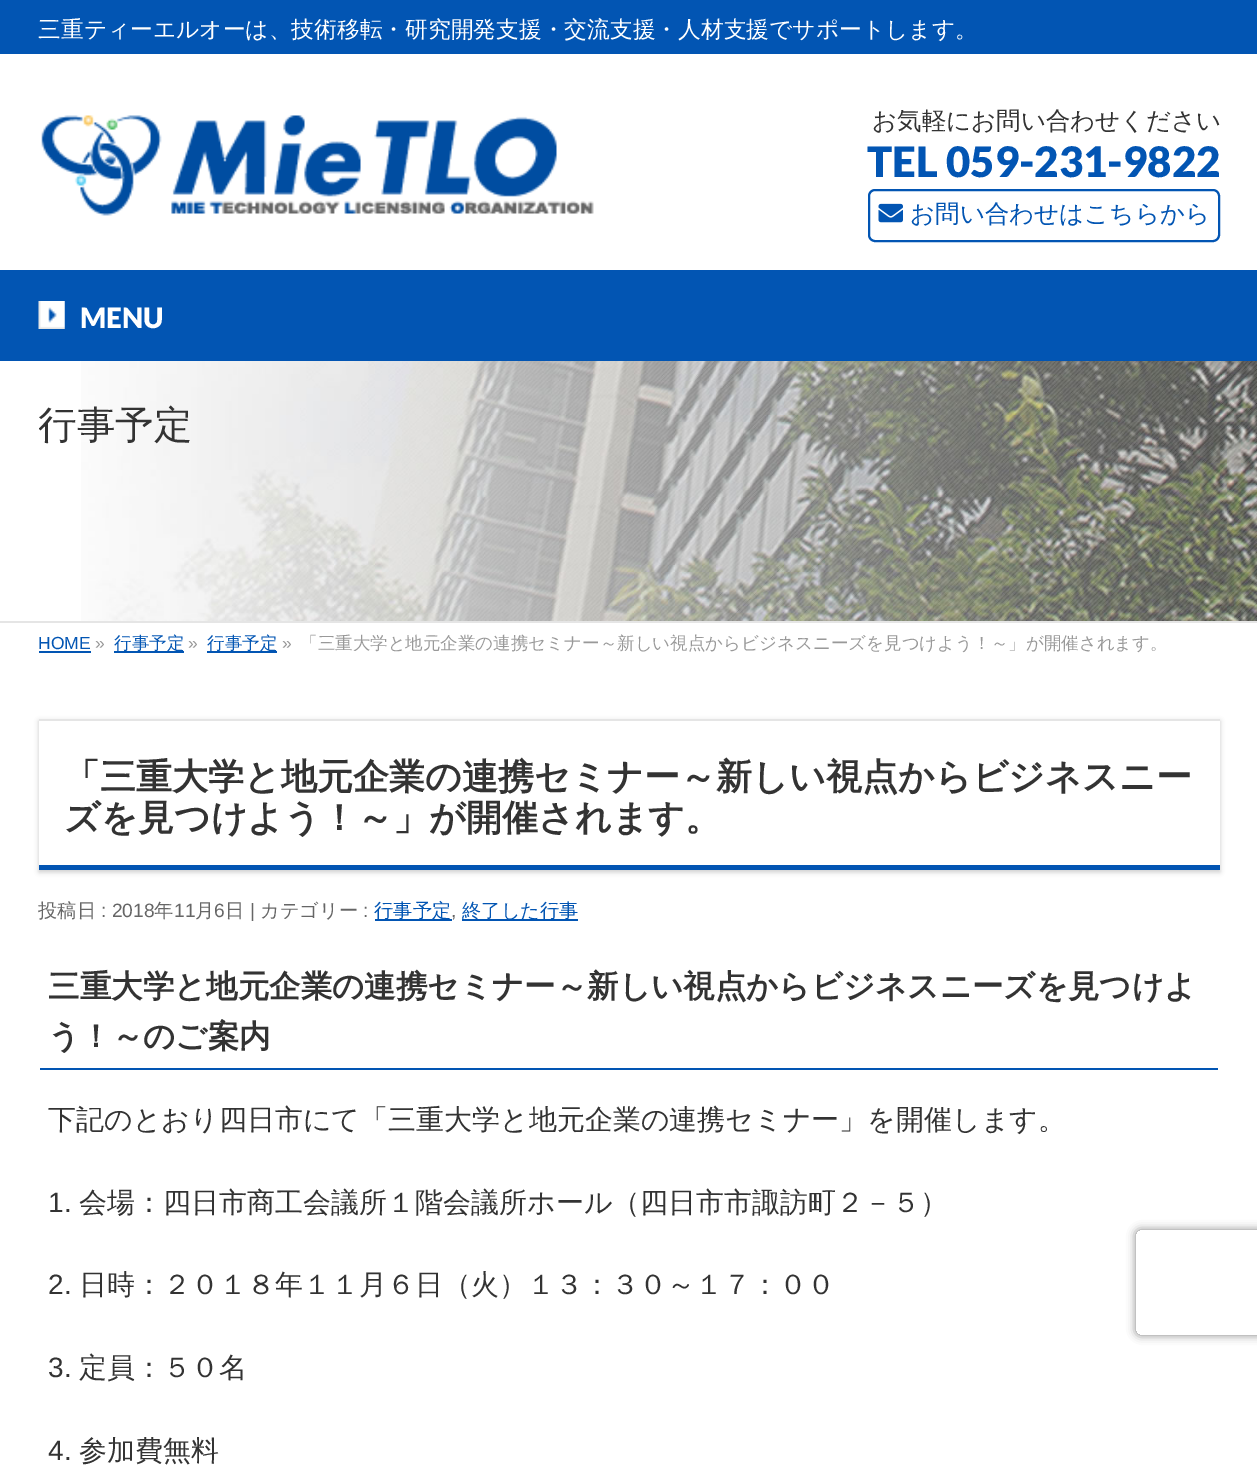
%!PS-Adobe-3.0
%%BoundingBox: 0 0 1257 1474
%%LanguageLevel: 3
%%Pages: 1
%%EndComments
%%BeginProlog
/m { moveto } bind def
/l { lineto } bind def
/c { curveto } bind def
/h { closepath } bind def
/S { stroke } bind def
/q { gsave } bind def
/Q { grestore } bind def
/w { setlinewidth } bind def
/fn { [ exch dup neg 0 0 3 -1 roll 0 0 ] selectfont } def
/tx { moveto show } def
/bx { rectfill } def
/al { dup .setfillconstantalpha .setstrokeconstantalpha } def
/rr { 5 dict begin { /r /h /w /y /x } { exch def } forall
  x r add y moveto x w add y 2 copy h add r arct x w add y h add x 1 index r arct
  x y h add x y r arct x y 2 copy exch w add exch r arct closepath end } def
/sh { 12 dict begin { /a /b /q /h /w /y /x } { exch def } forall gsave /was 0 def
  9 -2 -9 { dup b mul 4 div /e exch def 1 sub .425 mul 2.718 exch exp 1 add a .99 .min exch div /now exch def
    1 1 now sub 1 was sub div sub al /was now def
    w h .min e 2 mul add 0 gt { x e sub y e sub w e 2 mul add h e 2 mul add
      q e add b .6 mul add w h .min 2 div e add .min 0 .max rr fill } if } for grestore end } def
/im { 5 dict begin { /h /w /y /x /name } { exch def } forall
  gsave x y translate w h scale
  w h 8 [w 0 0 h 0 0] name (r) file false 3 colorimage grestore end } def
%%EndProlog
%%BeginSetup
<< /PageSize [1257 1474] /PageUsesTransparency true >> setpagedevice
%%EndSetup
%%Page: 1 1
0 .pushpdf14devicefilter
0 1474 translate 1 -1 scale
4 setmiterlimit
1 setgray
0 0 1257 1474 bx
0.008 0.333 0.702 setrgbcolor
0 0 1257 54 bx
/WenQuanYiZenHei-Medium 22.75 fn
1 setgray
(三重ティーエルオーは、技術移転・研究開発支援・交流支援・人材支援でサポートします。) 38 37 tx
(image0.raw) 41 115 553 101 im
/WenQuanYiZenHei-Medium 24.5 fn
0.2 setgray
(お気軽にお問い合わせください) 872 129 tx
/Lato-Black 42 fn
0.008 0.333 0.702 setrgbcolor
(TEL 059-231-9822) 867 177 tx
2 w
869 190 350 51 6 rr S
(image1.raw) 878 203 25 20 im
/WenQuanYiZenHei-Medium 24.5 fn
(お問い合わせはこちらから) 910 222 tx
0 270 1257 91 bx
(image2.raw) 38 301 27 28 im
/Lato-Black 28 fn
1 setgray
(MENU) 80 328 tx
(image3.raw) 81 361 1176 260 im
0.898 setgray
0 621 1257 2 bx
q
39 361 1181 122 rectclip
/WenQuanYiZenHei-Medium 38.5 fn
0.2 setgray
(行事予定) 38 438 tx
Q
/LiberationSans-Regular 17.5 fn
0.008 0.333 0.702 setrgbcolor
(HOME) 38 649 tx
39 651 52 2 bx
0.6 setgray
(») 95 649 tx
0.008 0.333 0.702 setrgbcolor
114 651 70 2 bx
/WenQuanYiZenHei-Medium 17.5 fn
(行事予定) 114 649 tx
/LiberationSans-Regular 17.5 fn
0.6 setgray
(») 188 649 tx
0.008 0.333 0.702 setrgbcolor
207 651 70 2 bx
/WenQuanYiZenHei-Medium 17.5 fn
(行事予定) 207 649 tx
/LiberationSans-Regular 17.5 fn
0.6 setgray
(») 282 649 tx
/WenQuanYiZenHei-Medium 17.5 fn
(「三重大学と地元企業の連携セミナー～新しい視点からビジネスニーズを見つけよう！～」が開催されます。) 300 649 tx
q
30 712 m 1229 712 l 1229 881 l 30 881 l h 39 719 m 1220 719 l 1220 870 l 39 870 l h eoclip newpath
0 setgray
39 721 1181 151 0 2.5 0.2 sh
Q
0.898 setgray
39 719 1181 2 bx
0.008 0.333 0.702 setrgbcolor
39 865 1181 5 bx
/WenQuanYiZenHei-Bold 36 fn
0.2 setgray
(「三重大学と地元企業の連携セミナー～新しい視点からビジネスニー) 64 789 tx
(ズを見つけよう！～」が開催されます。) 64 830 tx
/WenQuanYiZenHei-Medium 19.25 fn
0.4 setgray
(投稿日) 38 917 tx
/LiberationSans-Regular 19.25 fn
(: 2018) 101 917 tx
/WenQuanYiZenHei-Medium 19.25 fn
(年) 154 917 tx
/LiberationSans-Regular 19.25 fn
(11) 174 917 tx
/WenQuanYiZenHei-Medium 19.25 fn
(月) 195 917 tx
/LiberationSans-Regular 19.25 fn
(6) 214 917 tx
/WenQuanYiZenHei-Medium 19.25 fn
(日) 225 917 tx
/LiberationSans-Regular 19.25 fn
(|) 250 917 tx
/WenQuanYiZenHei-Medium 19.25 fn
(カテゴリー) 260 917 tx
/LiberationSans-Regular 19.25 fn
(:) 363 917 tx
0.008 0.333 0.702 setrgbcolor
375 919 77 2 bx
/WenQuanYiZenHei-Medium 19.25 fn
(行事予定) 374 917 tx
/LiberationSans-Regular 19.25 fn
0.4 setgray
(,) 451 917 tx
0.008 0.333 0.702 setrgbcolor
462 919 116 2 bx
/WenQuanYiZenHei-Medium 19.25 fn
(終了した行事) 462 917 tx
40 1068 1178 2 bx
/WenQuanYiZenHei-Bold 31.5 fn
0.2 setgray
(三重大学と地元企業の連携セミナー～新しい視点からビジネスニーズを見つけよ) 48 997 tx
(う！～のご案内) 48 1047 tx
/WenQuanYiZenHei-Medium 28 fn
(下記のとおり四日市にて「三重大学と地元企業の連携セミナー」を開催します。) 48 1129 tx
/LiberationSans-Regular 28 fn
(1.) 48 1212 tx
/WenQuanYiZenHei-Medium 28 fn
(会場：四日市商工会議所１階会議所ホール（四日市市諏訪町２－５）) 79 1212 tx
/LiberationSans-Regular 28 fn
(2.) 48 1294 tx
/WenQuanYiZenHei-Medium 28 fn
(日時：２０１８年１１月６日（火）１３：３０～１７：００) 79 1294 tx
/LiberationSans-Regular 28 fn
(3.) 48 1377 tx
/WenQuanYiZenHei-Medium 28 fn
(定員：５０名) 79 1377 tx
/LiberationSans-Regular 28 fn
(4.) 48 1460 tx
/WenQuanYiZenHei-Medium 28 fn
(参加費無料) 79 1460 tx
q
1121 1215 m 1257 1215 l 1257 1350 l 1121 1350 l h 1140 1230 m 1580 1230 l 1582 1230 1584 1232 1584 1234 c 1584 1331 l 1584 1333 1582 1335 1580 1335 c 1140 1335 l 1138 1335 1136 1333 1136 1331 c 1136 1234 l 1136 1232 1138 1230 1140 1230 c h eoclip newpath
0.502 setgray
1136 1230 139 105 4 4.5 1 sh
Q
.poppdf14devicefilter showpage
%%EOF
